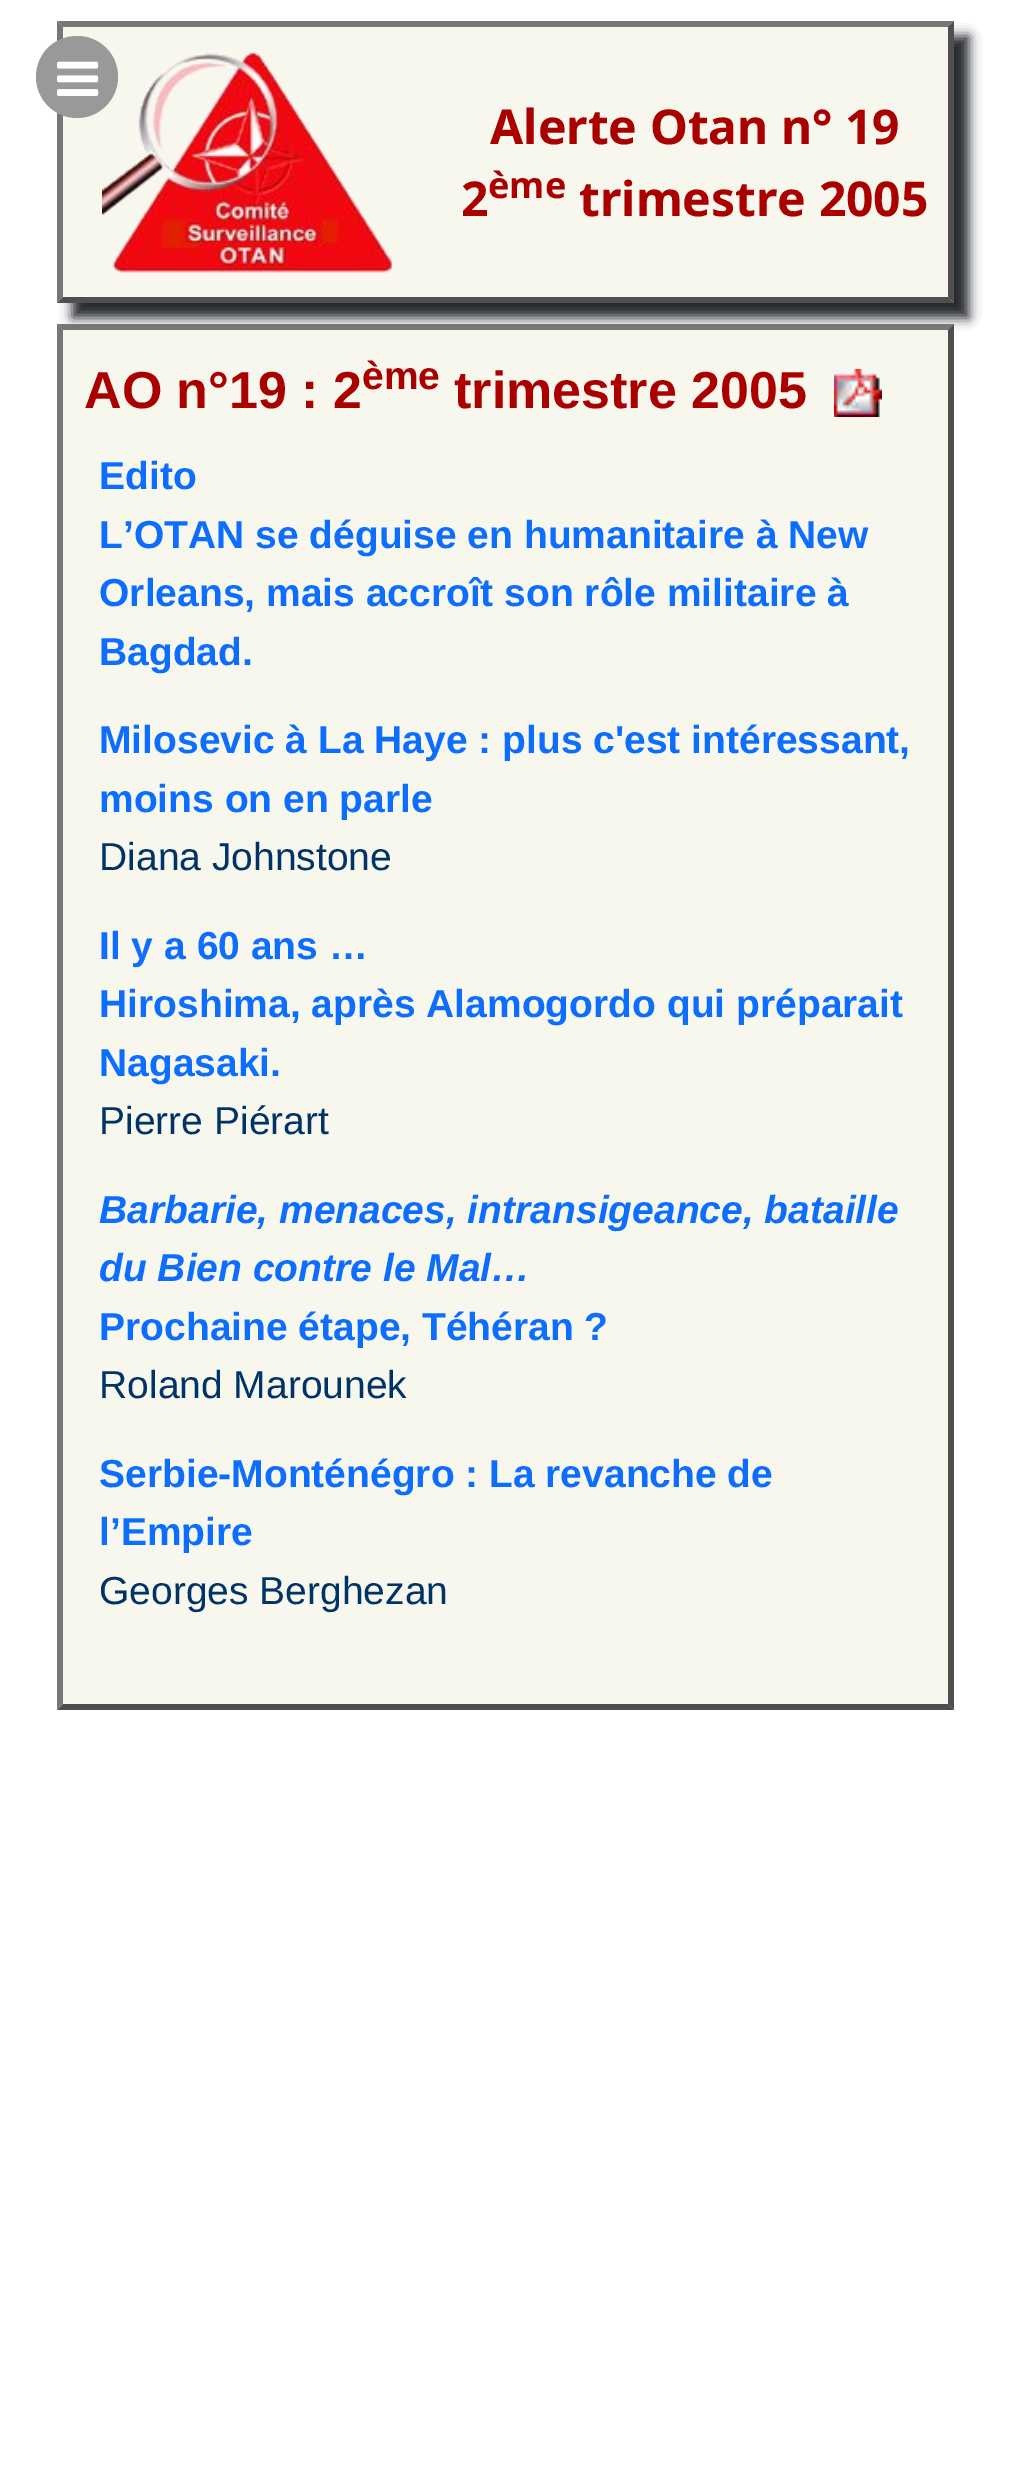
%!PS-Adobe-3.0
%%BoundingBox: 0 0 1009 2487
%%LanguageLevel: 3
%%Pages: 1
%%EndComments
%%BeginProlog
/m { moveto } bind def
/l { lineto } bind def
/c { curveto } bind def
/h { closepath } bind def
/f { fill } bind def
/fn { [ exch dup neg 0 0 3 -1 roll 0 0 ] selectfont } def
/tx { moveto show } def
/bx { rectfill } def
/al { dup .setfillconstantalpha .setstrokeconstantalpha } def
/rr { 5 dict begin { /r /h /w /y /x } { exch def } forall
  x r add y moveto x w add y 2 copy h add r arct x w add y h add x 1 index r arct
  x y h add x y r arct x y 2 copy exch w add exch r arct closepath end } def
/sh { 12 dict begin { /a /b /q /h /w /y /x } { exch def } forall gsave /was 0 def
  9 -2 -9 { dup b mul 4 div /e exch def 1 sub .425 mul 2.718 exch exp 1 add a .99 .min exch div /now exch def
    1 1 now sub 1 was sub div sub al /was now def
    w h .min e 2 mul add 0 gt { x e sub y e sub w e 2 mul add h e 2 mul add
      q e add b .6 mul add w h .min 2 div e add .min 0 .max rr fill } if } for grestore end } def
/im { 5 dict begin { /h /w /y /x /name } { exch def } forall
  gsave x y translate w h scale
  w h 8 [w 0 0 h 0 0] name (r) file false 3 colorimage grestore end } def
%%EndProlog
%%BeginSetup
<< /PageSize [1009 2487] /PageUsesTransparency true >> setpagedevice
%%EndSetup
%%Page: 1 1
0 .pushpdf14devicefilter
0 2487 translate 1 -1 scale
4 setmiterlimit
1 setgray
0 0 1009 2487 bx
0.129 0.145 0.161 setrgbcolor
72 36 897 282 0 6 1 sh
0.969 0.969 0.933 setrgbcolor
57 21 897 282 bx
0.467 setgray
57 21 m 954 21 l 948 27 l 63 27 l h f
0.31 setgray
954 21 m 954 303 l 948 297 l 948 27 l h f
954 303 m 57 303 l 63 297 l 948 297 l h f
0.467 setgray
57 303 m 57 21 l 63 27 l 63 297 l h f
(image1.raw) 102 51 292 222 im
0.6 setgray
118 77 m 118 54 100 36 77 36 c 54 36 36 54 36 77 c 36 99 54 118 77 118 c 100 118 118 99 118 77 c h f
(image0.raw) 57 61 42 35 im
/NotoSans-Bold 48 fn
0.667 0 0 setrgbcolor
(Alerte Otan n° 19) 490 144 tx
(2) 461 216 tx
/NotoSans-Bold 36 fn
(ème) 488 198 tx
/NotoSans-Bold 48 fn
(trimestre 2005) 579 216 tx
0.969 0.969 0.933 setrgbcolor
57 324 897 1386 bx
0.467 setgray
57 324 m 954 324 l 948 330 l 63 330 l h f
0.31 setgray
954 324 m 954 1710 l 948 1704 l 948 330 l h f
954 1710 m 57 1710 l 63 1704 l 948 1704 l h f
0.467 setgray
57 1710 m 57 324 l 63 330 l 63 1704 l h f
/LiberationSans-Bold 52 fn
0.667 0 0 setrgbcolor
(AO n°19 : 2) 84 408 tx
/LiberationSans-Bold 39 fn
(ème) 362 389 tx
/LiberationSans-Bold 52 fn
(trimestre 2005) 454 408 tx
(image2.raw) 834 369 48 48 im
/LiberationSans-Bold 39 fn
0.051 0.431 0.992 setrgbcolor
(Edito) 99 489 tx
(L’OTAN se déguise en humanitaire à New) 99 548 tx
(Orleans, mais accroît son rôle militaire à) 99 606 tx
(Bagdad.) 99 665 tx
(Milosevic à La Haye : plus c'est intéressant,) 99 753 tx
(moins on en parle) 99 812 tx
/LiberationSans-Regular 39 fn
0 0.2 0.4 setrgbcolor
(Diana Johnstone) 99 870 tx
/LiberationSans-Bold 39 fn
0.051 0.431 0.992 setrgbcolor
(Il y a 60 ans …) 99 959 tx
(Hiroshima, après Alamogordo qui préparait) 99 1017 tx
(Nagasaki.) 99 1076 tx
/LiberationSans-Regular 39 fn
0 0.2 0.4 setrgbcolor
(Pierre Piérart) 99 1134 tx
/LiberationSans-BoldItalic 39 fn
0.051 0.431 0.992 setrgbcolor
(Barbarie, menaces, intransigeance, bataille) 99 1223 tx
(du Bien contre le Mal…) 99 1281 tx
/LiberationSans-Bold 39 fn
(Prochaine étape, Téhéran ?) 99 1340 tx
/LiberationSans-Regular 39 fn
0 0.2 0.4 setrgbcolor
(Roland Marounek) 99 1398 tx
/LiberationSans-Bold 39 fn
0.051 0.431 0.992 setrgbcolor
(Serbie-Monténégro : La revanche de) 99 1487 tx
(l’Empire) 99 1545 tx
/LiberationSans-Regular 39 fn
0 0.2 0.4 setrgbcolor
(Georges Berghezan) 99 1604 tx
.poppdf14devicefilter showpage
%%EOF
